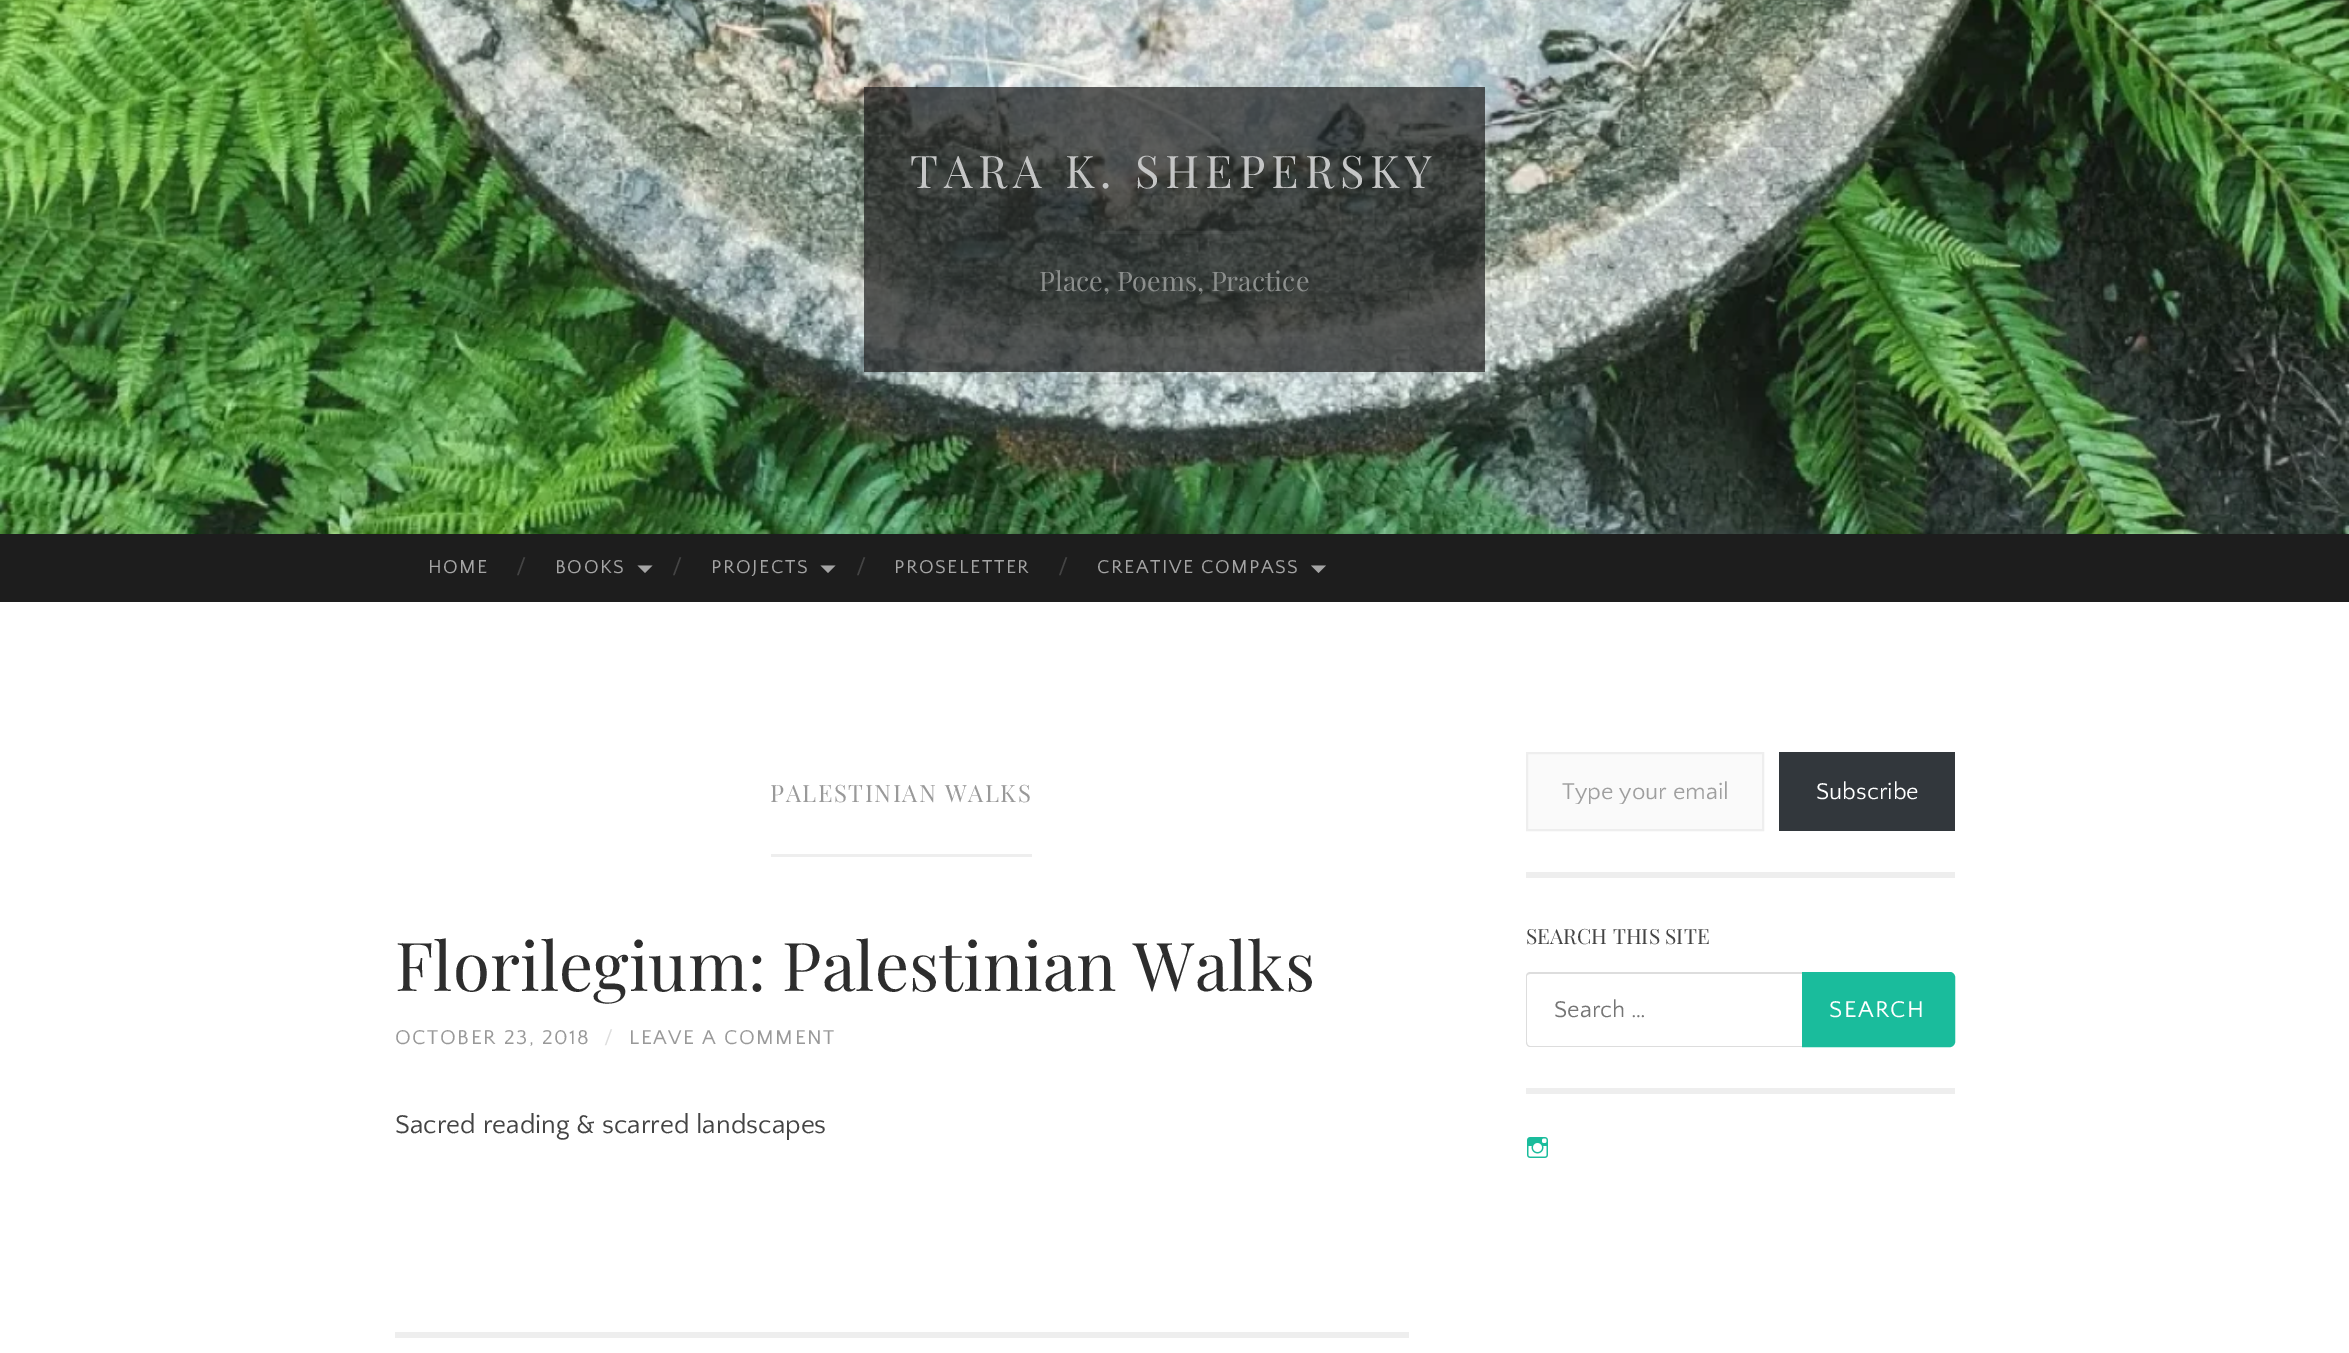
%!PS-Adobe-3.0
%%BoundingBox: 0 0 2349 1353
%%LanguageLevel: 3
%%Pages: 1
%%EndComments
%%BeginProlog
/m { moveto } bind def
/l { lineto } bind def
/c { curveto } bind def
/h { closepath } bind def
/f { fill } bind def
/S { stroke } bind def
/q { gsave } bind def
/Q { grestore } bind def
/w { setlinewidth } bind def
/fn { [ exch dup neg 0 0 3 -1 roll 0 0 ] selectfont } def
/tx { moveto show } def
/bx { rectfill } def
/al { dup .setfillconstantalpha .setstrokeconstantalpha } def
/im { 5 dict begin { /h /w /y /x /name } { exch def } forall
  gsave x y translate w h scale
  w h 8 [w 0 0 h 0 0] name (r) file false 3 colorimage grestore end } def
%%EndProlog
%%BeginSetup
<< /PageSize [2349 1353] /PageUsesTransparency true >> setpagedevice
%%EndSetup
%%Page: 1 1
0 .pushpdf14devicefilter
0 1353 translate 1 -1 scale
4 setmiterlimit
1 setgray
0 0 2349 1353 bx
(image0.raw) 0 0 2349 534 im
0.71 al
0.114 setgray
864 87 621 285 bx
/PlayfairDisplay-Regular 45 fn
1 al
0.773 0.776 0.776 setrgbcolor
910 188 m 6 0 (TARA K. SHEPERSKY) ashow
0.04 al
1 setgray
1100 231 150 3 bx
/PlayfairDisplay-Regular 27 fn
1 al
0.549 0.561 0.553 setrgbcolor
(Place, Poems, Practice) 1039 291 tx
0.114 setgray
0 534 2349 68 bx
/QuattrocentoSans-Regular 19.5 fn
0.647 setgray
428 573 m 1.5 0 (HOME) ashow
/QuattrocentoSans-Regular 24 fn
0.267 setgray
(/) 516 574 tx
/QuattrocentoSans-Regular 19.5 fn
0.647 setgray
555 573 m 1.5 0 (BOOKS) ashow
637.5 565.5 m 652.5 565.5 l 645 573 l h f
/QuattrocentoSans-Regular 24 fn
0.267 setgray
(/) 672 574 tx
/QuattrocentoSans-Regular 19.5 fn
0.647 setgray
711 573 m 1.5 0 (PROJECTS) ashow
820.5 565.5 m 835.5 565.5 l 828 573 l h f
/QuattrocentoSans-Regular 24 fn
0.267 setgray
(/) 856 574 tx
/QuattrocentoSans-Regular 19.5 fn
0.647 setgray
894 573 m 1.5 0 (PROSELETTER) ashow
/QuattrocentoSans-Regular 24 fn
0.267 setgray
(/) 1058 574 tx
/QuattrocentoSans-Regular 19.5 fn
0.647 setgray
1097 573 m 1.5 0 (CREATIVE COMPASS) ashow
1311 565.5 m 1326 565.5 l 1318.5 573 l h f
0.933 setgray
771 854 261 3 bx
/PlayfairDisplay-Regular 24 fn
0.6 setgray
770 802 m 1.5 0 (PALESTINIAN WALKS) ashow
0.933 setgray
395 1332 1014 6 bx
/PlayfairDisplay-Regular 67.5 fn
0.176 setgray
(Florilegium: Palestinian Walks) 395 991 tx
/QuattrocentoSans-Regular 21 fn
0.6 setgray
395 1044 m 1.5 0 (OCTOBER 23, 2018) ashow
0.867 setgray
604 1044 m 1.5 0 (/) ashow
0.6 setgray
629 1044 m 1.5 0 (LEAVE A COMMENT) ashow
/QuattrocentoSans-Regular 27 fn
0.267 setgray
(Sacred reading & scarred landscapes) 395 1133 tx
0.933 setgray
1526 872 429 6 bx
0.98 setgray
1527 753 m 1763 753 l 1763 830 l 1527 830 l h q f Q
0.933 setgray
2 w
S
q
1562 777 166 27 rectclip
/QuattrocentoSans-Regular 24 fn
0.624 setgray
(Type your email) 1562 799 tx
Q
0.196 0.216 0.235 setrgbcolor
1779 752 176 79 bx
/QuattrocentoSans-Regular 24 fn
1 setgray
(Subscribe) 1816 799 tx
0.933 setgray
1526 1088 429 6 bx
/PlayfairDisplay-Regular 21 fn
0.267 setgray
(SEARCH THIS SITE) 1526 944 tx
0.867 setgray
1530 972 m 1950 972 l 1950 1047 l 1530 1047 l 1528 1047 1526 1045 1526 1042 c 1526 976 l 1526 974 1528 972 1530 972 c h 1530 974 m 1950 974 l 1950 1046 l 1530 1046 l 1528 1046 1527 1044 1527 1042 c 1527 976 l 1527 975 1528 974 1530 974 c h eofill
/QuattrocentoSans-Regular 24 fn
0.459 setgray
(Search …) 1554 1017 tx
0.102 0.737 0.612 setrgbcolor
1803 973 m 1950 973 l 1952 973 1954 975 1954 977 c 1954 1042 l 1954 1044 1952 1046 1950 1046 c 1803 1046 l h q f Q
S
1 setgray
1829 1017 m 1.5 0 (SEARCH) ashow
(image1.raw) 1527 1137 21 21 im
.poppdf14devicefilter showpage
%%EOF
